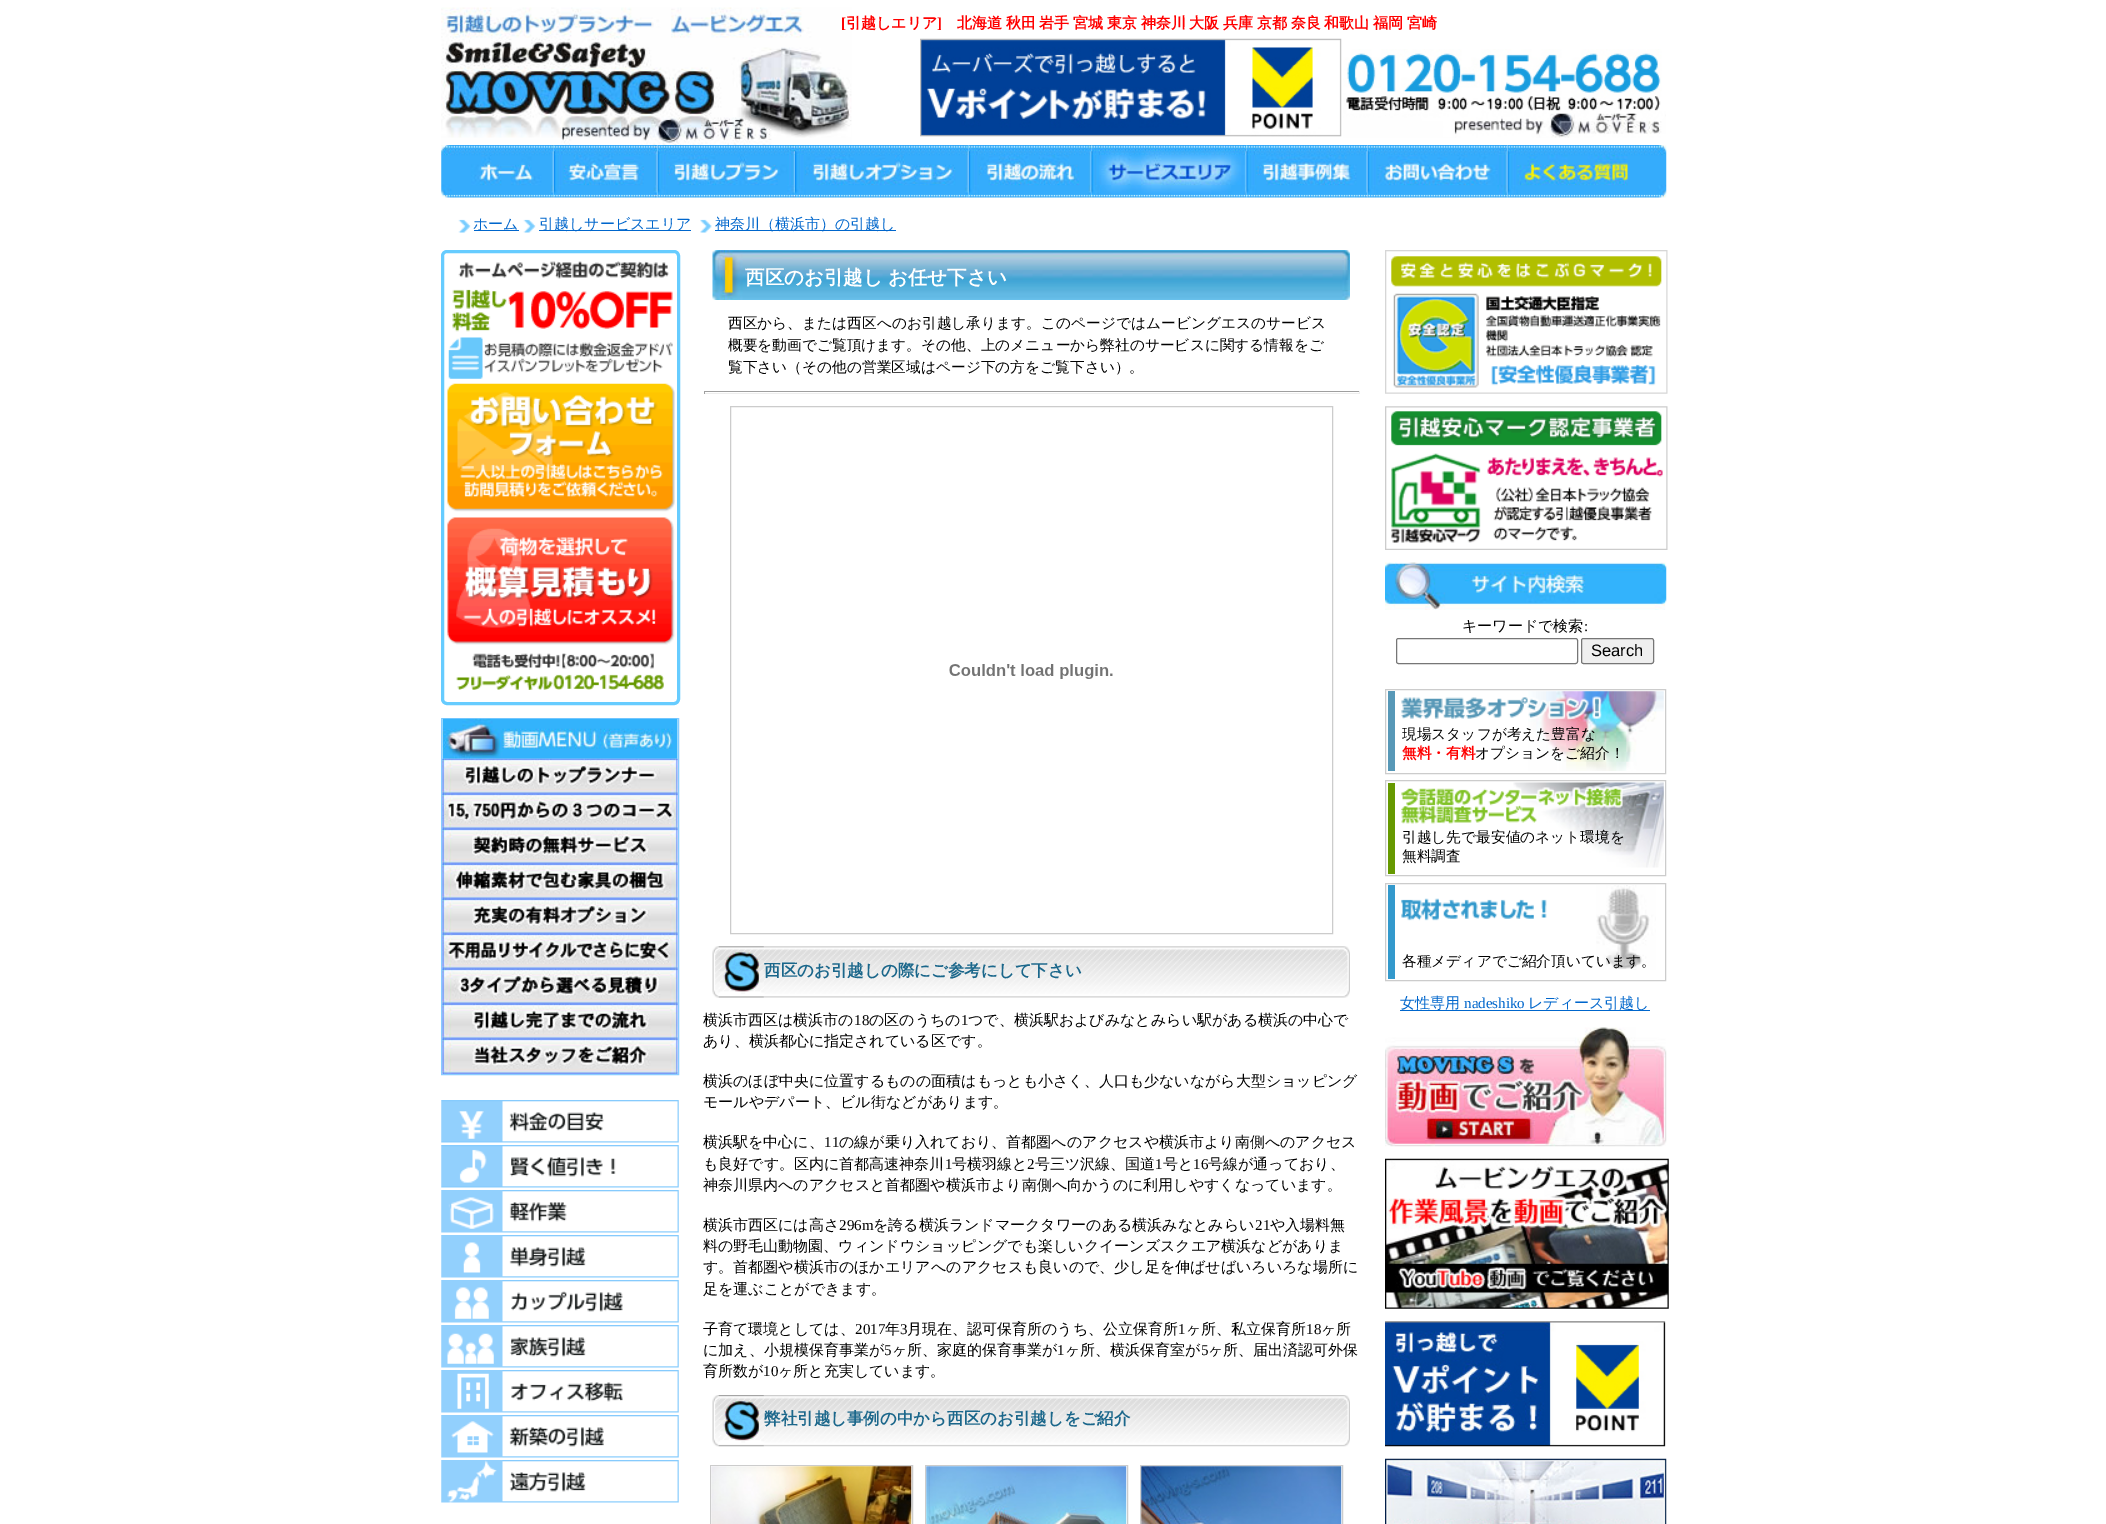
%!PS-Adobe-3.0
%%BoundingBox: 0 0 2106 1524
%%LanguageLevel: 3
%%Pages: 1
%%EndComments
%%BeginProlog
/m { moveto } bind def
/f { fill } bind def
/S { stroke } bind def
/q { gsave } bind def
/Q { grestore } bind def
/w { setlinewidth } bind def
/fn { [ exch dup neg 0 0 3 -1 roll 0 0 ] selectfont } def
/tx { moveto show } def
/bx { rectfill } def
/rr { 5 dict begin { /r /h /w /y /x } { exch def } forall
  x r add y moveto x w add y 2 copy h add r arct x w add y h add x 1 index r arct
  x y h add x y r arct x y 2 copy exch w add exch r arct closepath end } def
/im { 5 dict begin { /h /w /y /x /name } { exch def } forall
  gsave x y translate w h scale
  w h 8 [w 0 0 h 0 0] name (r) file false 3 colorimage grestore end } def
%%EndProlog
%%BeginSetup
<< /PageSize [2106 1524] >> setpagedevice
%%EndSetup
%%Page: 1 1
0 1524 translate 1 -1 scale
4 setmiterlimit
1 setgray
0 0 2106 1524 bx
(image0.raw) 441 7 411 138 im
(image1.raw) 920 38 422 99 im
(image2.raw) 1343 49 323 89 im
/LiberationSerif-Bold 15 fn
1 0 0 setrgbcolor
([) 841 28 tx
/WenQuanYiZenHei-Bold 15 fn
(引越しエリア) 846 28 tx
/LiberationSerif-Bold 15 fn
(]) 937 28 tx
/WenQuanYiZenHei-Bold 15 fn
957 28 m -0.75 0 32 (北海道 秋田 岩手 宮城 東京 神奈川 大阪 兵庫 京都 奈良 和歌山 福岡 宮崎) widthshow
(image3.raw) 441 145 113 53 im
(image4.raw) 553 145 105 53 im
(image5.raw) 657 145 138 53 im
(image6.raw) 795 145 174 53 im
(image7.raw) 968 145 124 53 im
(image8.raw) 1091 145 156 53 im
(image9.raw) 1246 145 122 53 im
(image10.raw) 1367 145 141 53 im
(image11.raw) 1507 145 160 53 im
(image12.raw) 458 219 13 14 im
0 0.4 0.8 setrgbcolor
474 230 45 1 bx
/WenQuanYiZenHei-Medium 15 fn
(ホーム) 473 229 tx
(image12.raw) 523 219 13 14 im
539 230 152 1 bx
(引越しサービスエリア) 539 229 tx
(image13.raw) 700 219 12 14 im
715 230 181 1 bx
(神奈川（横浜市）の引越し) 715 229 tx
0.4 0.8 1 setrgbcolor
3 w
442.5 251.5 236 452 4.5 rr S
(image14.raw) 452 261 221 71 im
(image15.raw) 448 337 225 42 im
(image16.raw) 447 383 228 129 im
(image17.raw) 447 517 228 128 im
(image18.raw) 456 653 208 37 im
0.533 0.8 1 setrgbcolor
1 w
441.5 718.5 237 356 rectstroke
(image20.raw) 442 758 236 36 im
(image19.raw) 442 718 236 41 im
(image22.raw) 442 793 236 36 im
(image21.raw) 442 758 236 36 im
(image24.raw) 442 828 236 36 im
(image23.raw) 442 793 236 36 im
(image26.raw) 442 863 236 36 im
(image25.raw) 442 828 236 36 im
(image28.raw) 442 898 236 36 im
(image27.raw) 442 863 236 36 im
(image30.raw) 442 933 236 36 im
(image29.raw) 442 898 236 36 im
(image32.raw) 442 968 236 36 im
(image31.raw) 442 933 236 36 im
(image34.raw) 442 1003 236 36 im
(image33.raw) 442 968 236 36 im
(image36.raw) 442 1038 236 36 im
(image35.raw) 442 1003 236 36 im
(image37.raw) 442 1038 236 36 im
(image38.raw) 441 1100 238 43 im
(image39.raw) 441 1145 238 43 im
(image40.raw) 441 1190 238 43 im
(image41.raw) 441 1235 238 43 im
(image42.raw) 441 1280 238 43 im
(image43.raw) 441 1325 238 43 im
(image44.raw) 441 1370 238 43 im
(image45.raw) 441 1415 238 43 im
(image46.raw) 441 1460 238 43 im
(image47.raw) 712 250 638 50 im
/WenQuanYiZenHei-Bold 19.5 fn
1 setgray
745 284 m -1 0 32 (西区のお引越し お任せ下さい) widthshow
/WenQuanYiZenHei-Medium 14.7 fn
0 setgray
(西区から、または西区へのお引越し承ります。このページではムービングエスのサービス) 728 328 tx
(概要を動画でご覧頂けます。その他、上のメニューから弊社のサービスに関する情報をご) 728 350 tx
(覧下さい（その他の営業区域はページ下の方をご覧下さい）。) 728 372 tx
0.624 setgray
704 391 656 1 bx
0.933 setgray
1359 391 1 3 bx
704 393 656 1 bx
0.624 setgray
704 391 1 3 bx
0.8 setgray
730.5 406.5 602 527 rectstroke
(image48.raw) 949 664 164 15 im
(image49.raw) 712 946 638 52 im
(image50.raw) 718 946 46 52 im
/WenQuanYiZenHei-Bold 16.5 fn
0.106 0.404 0.545 setrgbcolor
(西区のお引越しの際にご参考にして下さい) 764 976 tx
/WenQuanYiZenHei-Medium 15 fn
0 setgray
(横浜市西区は横浜市の) 703 1025 tx
/LiberationSerif-Regular 15 fn
(18) 854 1025 tx
/WenQuanYiZenHei-Medium 15 fn
(の区のうちの) 869 1025 tx
/LiberationSerif-Regular 15 fn
(1) 961 1025 tx
/WenQuanYiZenHei-Medium 15 fn
(つで、横浜駅およびみなとみらい駅がある横浜の中心で) 968 1025 tx
(あり、横浜都心に指定されている区です。) 703 1046 tx
(横浜のほぼ中央に位置するものの面積はもっとも小さく、人口も少ないながら大型ショッピング) 703 1086 tx
(モールやデパート、ビル街などがあります。) 703 1107 tx
(横浜駅を中心に、) 703 1147 tx
/LiberationSerif-Regular 15 fn
(11) 824 1147 tx
/WenQuanYiZenHei-Medium 15 fn
(の線が乗り入れており、首都圏へのアクセスや横浜市より南側へのアクセス) 839 1147 tx
(も良好です。区内に首都高速神奈川) 703 1169 tx
/LiberationSerif-Regular 15 fn
(1) 945 1169 tx
/WenQuanYiZenHei-Medium 15 fn
(号横羽線と) 952 1169 tx
/LiberationSerif-Regular 15 fn
(2) 1027 1169 tx
/WenQuanYiZenHei-Medium 15 fn
(号三ツ沢線、国道) 1035 1169 tx
/LiberationSerif-Regular 15 fn
(1) 1155 1169 tx
/WenQuanYiZenHei-Medium 15 fn
(号と) 1163 1169 tx
/LiberationSerif-Regular 15 fn
(16) 1193 1169 tx
/WenQuanYiZenHei-Medium 15 fn
(号線が通っており、) 1208 1169 tx
(神奈川県内へのアクセスと首都圏や横浜市より南側へ向かうのに利用しやすくなっています。) 703 1190 tx
(横浜市西区には高さ) 703 1230 tx
/LiberationSerif-Regular 15 fn
(296m) 839 1230 tx
/WenQuanYiZenHei-Medium 15 fn
(を誇る横浜ランドマークタワーのある横浜みなとみらい) 873 1230 tx
/LiberationSerif-Regular 15 fn
(21) 1255 1230 tx
/WenQuanYiZenHei-Medium 15 fn
(や入場料無) 1270 1230 tx
(料の野毛山動物園、ウィンドウショッピングでも楽しいクイーンズスクエア横浜などがありま) 703 1251 tx
(す。首都圏や横浜市のほかエリアへのアクセスも良いので、少し足を伸ばせばいろいろな場所に) 703 1272 tx
(足を運ぶことができます。) 703 1294 tx
(子育て環境としては、) 703 1334 tx
/LiberationSerif-Regular 15 fn
(2017) 855 1334 tx
/WenQuanYiZenHei-Medium 15 fn
(年) 885 1334 tx
/LiberationSerif-Regular 15 fn
(3) 900 1334 tx
/WenQuanYiZenHei-Medium 15 fn
(月現在、認可保育所のうち、公立保育所) 907 1334 tx
/LiberationSerif-Regular 15 fn
(1) 1178 1334 tx
/WenQuanYiZenHei-Medium 15 fn
(ヶ所、私立保育所) 1186 1334 tx
/LiberationSerif-Regular 15 fn
(18) 1306 1334 tx
/WenQuanYiZenHei-Medium 15 fn
(ヶ所) 1321 1334 tx
(に加え、小規模保育事業が) 703 1355 tx
/LiberationSerif-Regular 15 fn
(5) 884 1355 tx
/WenQuanYiZenHei-Medium 15 fn
(ヶ所、家庭的保育事業が) 892 1355 tx
/LiberationSerif-Regular 15 fn
(1) 1057 1355 tx
/WenQuanYiZenHei-Medium 15 fn
(ヶ所、横浜保育室が) 1065 1355 tx
/LiberationSerif-Regular 15 fn
(5) 1201 1355 tx
/WenQuanYiZenHei-Medium 15 fn
(ヶ所、届出済認可外保) 1208 1355 tx
(育所数が) 703 1376 tx
/LiberationSerif-Regular 15 fn
(10) 763 1376 tx
/WenQuanYiZenHei-Medium 15 fn
(ヶ所と充実しています。) 778 1376 tx
(image51.raw) 712 1395 638 52 im
(image52.raw) 718 1395 46 52 im
/WenQuanYiZenHei-Bold 16.5 fn
0.106 0.404 0.545 setrgbcolor
(弊社引越し事例の中から西区のお引越しをご紹介) 764 1424 tx
0.8 setgray
710.5 1465.5 202 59 rectstroke
(image53.raw) 711 1466 201 58 im
925.5 1465.5 202 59 rectstroke
(image54.raw) 926 1466 201 58 im
1140.5 1465.5 202 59 rectstroke
(image55.raw) 1141 1466 201 58 im
(image56.raw) 1385 250 283 144 im
(image57.raw) 1385 406 283 144 im
(image58.raw) 1385 562 282 48 im
/WenQuanYiZenHei-Medium 15 fn
0 setgray
(キーワードで検索) 1462 631 tx
/LiberationSerif-Regular 15 fn
(:) 1584 631 tx
0.463 setgray
1396.5 638.5 181 25 2 rr S
0.937 setgray
1581.5 638.5 72 25 2 rr q f Q
0.463 setgray
S
/LiberationSans-Regular 16.5 fn
0 setgray
(Search) 1591 656 tx
0.8 setgray
1385.5 689.5 280 84 rectstroke
(image59.raw) 1528 691 136 80 im
0.341 0.596 0.718 setrgbcolor
1388 691 7 80 bx
(image60.raw) 1401 696 201 24 im
/WenQuanYiZenHei-Medium 14.7 fn
0 setgray
(現場スタッフが考えた豊富な) 1402 739 tx
/WenQuanYiZenHei-Bold 14.7 fn
1 0 0 setrgbcolor
(無料・有料) 1402 758 tx
/WenQuanYiZenHei-Medium 14.7 fn
0 setgray
(オプションをご紹介！) 1475 758 tx
0.8 setgray
1385.5 780.5 280 95 rectstroke
(image61.raw) 1513 782 151 86 im
0.4 0.6 0 setrgbcolor
1388 783 7 91 bx
(image62.raw) 1401 786 223 38 im
0 setgray
(引越し先で最安値のネット環境を) 1402 842 tx
(無料調査) 1402 861 tx
0.8 setgray
1385.5 883.5 280 97 rectstroke
(image63.raw) 1596 885 60 85 im
0.2 0.6 0.8 setrgbcolor
1388 885 7 94 bx
(image64.raw) 1401 898 146 23 im
0 setgray
(各種メディアでご紹介頂いています。) 1402 966 tx
0 0.4 0.8 setrgbcolor
1400 1010 250 1 bx
/WenQuanYiZenHei-Medium 15 fn
(女性専用) 1400 1008 tx
/LiberationSerif-Regular 15 fn
(nadeshiko) 1464 1008 tx
/WenQuanYiZenHei-Medium 15 fn
(レディース引越し) 1528 1008 tx
(image65.raw) 1385 1027 282 120 im
(image66.raw) 1385 1158 284 151 im
(image67.raw) 1385 1321 281 126 im
(image68.raw) 1385 1458 282 66 im
showpage
%%EOF
